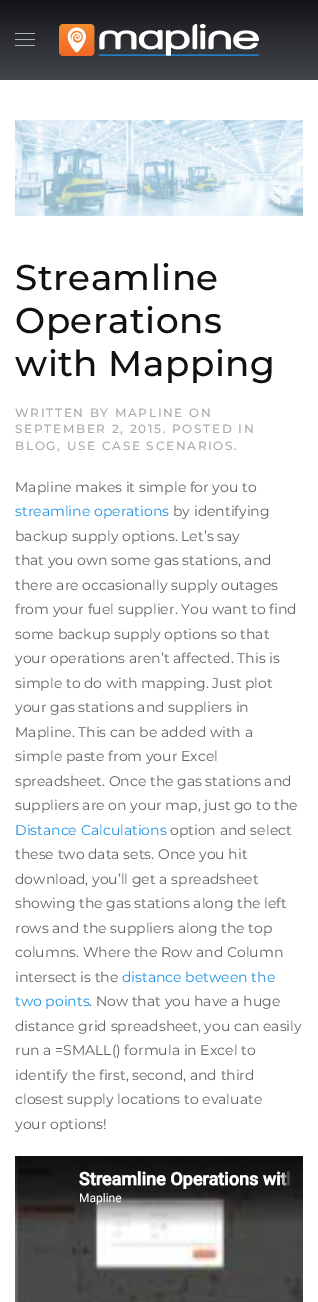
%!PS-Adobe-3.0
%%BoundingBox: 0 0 318 1302
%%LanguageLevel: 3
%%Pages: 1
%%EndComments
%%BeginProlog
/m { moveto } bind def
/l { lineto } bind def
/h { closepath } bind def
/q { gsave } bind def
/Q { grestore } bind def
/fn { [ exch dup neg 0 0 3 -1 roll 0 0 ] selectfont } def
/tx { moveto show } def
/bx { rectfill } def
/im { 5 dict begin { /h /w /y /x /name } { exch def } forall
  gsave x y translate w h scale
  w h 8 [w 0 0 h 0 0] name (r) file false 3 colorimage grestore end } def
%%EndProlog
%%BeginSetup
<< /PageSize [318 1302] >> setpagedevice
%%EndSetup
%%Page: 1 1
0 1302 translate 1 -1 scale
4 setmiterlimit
1 setgray
0 0 318 1302 bx
q 0 0 m 318 0 l 318 80 l 0 80 l h clip newpath
<< /ShadingType 2 /ColorSpace /DeviceRGB /Coords [159 0 159 80] /Extend [true true] /Function << /FunctionType 2 /Domain [0 1] /C0 [0.075 0.078 0.094] /C1 [0.263 0.275 0.294] /N 1 >> >> shfill Q
0.69 0.706 0.729 setrgbcolor
15 33 20 1 bx
15 39 20 1 bx
15 45 20 1 bx
(image0.raw) 59 24 200 32 im
(image1.raw) 15 120 288 96 im
/Montserrat-Thin 35.75 fn
0.067 setgray
15 290 m 0.5 0 (Streamline) ashow
15 333 m 0.5 0 (Operations) ashow
15 376 m 0.5 0 (with Mapping) ashow
/Montserrat-Thin 12 fn
0.667 setgray
15 417 m 1.7 0 (WRITTEN BY MAPLINE ON) ashow
15 433 m 1.7 0 (SEPTEMBER 2, 2015. POSTED IN) ashow
15 450 m 1.7 0 (BLOG, USE CASE SCENARIOS.) ashow
/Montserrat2-Thin 14 fn
0.376 0.384 0.4 setrgbcolor
(Mapline makes it simple for you to) 15 492 tx
0.118 0.576 0.898 setrgbcolor
(streamline operations) 15 516 tx
0.376 0.384 0.4 setrgbcolor
(by identifying) 173 516 tx
(backup supply options. Let’s say) 15 541 tx
(that you own some gas stations, and) 15 565 tx
(there are occasionally supply outages) 15 590 tx
(from your fuel supplier. You want to find) 15 614 tx
(some backup supply options so that) 15 639 tx
(your operations aren’t affected. This is) 15 663 tx
(simple to do with mapping. Just plot) 15 688 tx
(your gas stations and suppliers in) 15 712 tx
(Mapline. This can be added with a) 15 737 tx
(simple paste from your Excel) 15 761 tx
(spreadsheet. Once the gas stations and) 15 786 tx
(suppliers are on your map, just go to the) 15 810 tx
0.118 0.576 0.898 setrgbcolor
(Distance Calculations) 15 835 tx
0.376 0.384 0.4 setrgbcolor
(option and select) 170 835 tx
(these two data sets. Once you hit) 15 859 tx
(download, you’ll get a spreadsheet) 15 884 tx
(showing the gas stations along the left) 15 908 tx
(rows and the suppliers along the top) 15 933 tx
(columns. Where the Row and Column) 15 957 tx
(intersect is the) 15 982 tx
0.118 0.576 0.898 setrgbcolor
(distance between the) 122 982 tx
(two points) 15 1006 tx
0.376 0.384 0.4 setrgbcolor
(. Now that you have a huge) 89 1006 tx
(distance grid spreadsheet, you can easily) 15 1031 tx
(run a =SMALL\(\) formula in Excel to) 15 1055 tx
(identify the first, second, and third) 15 1080 tx
(closest supply locations to evaluate) 15 1104 tx
(your options!) 15 1129 tx
(image2.raw) 15 1156 288 146 im
showpage
%%EOF
